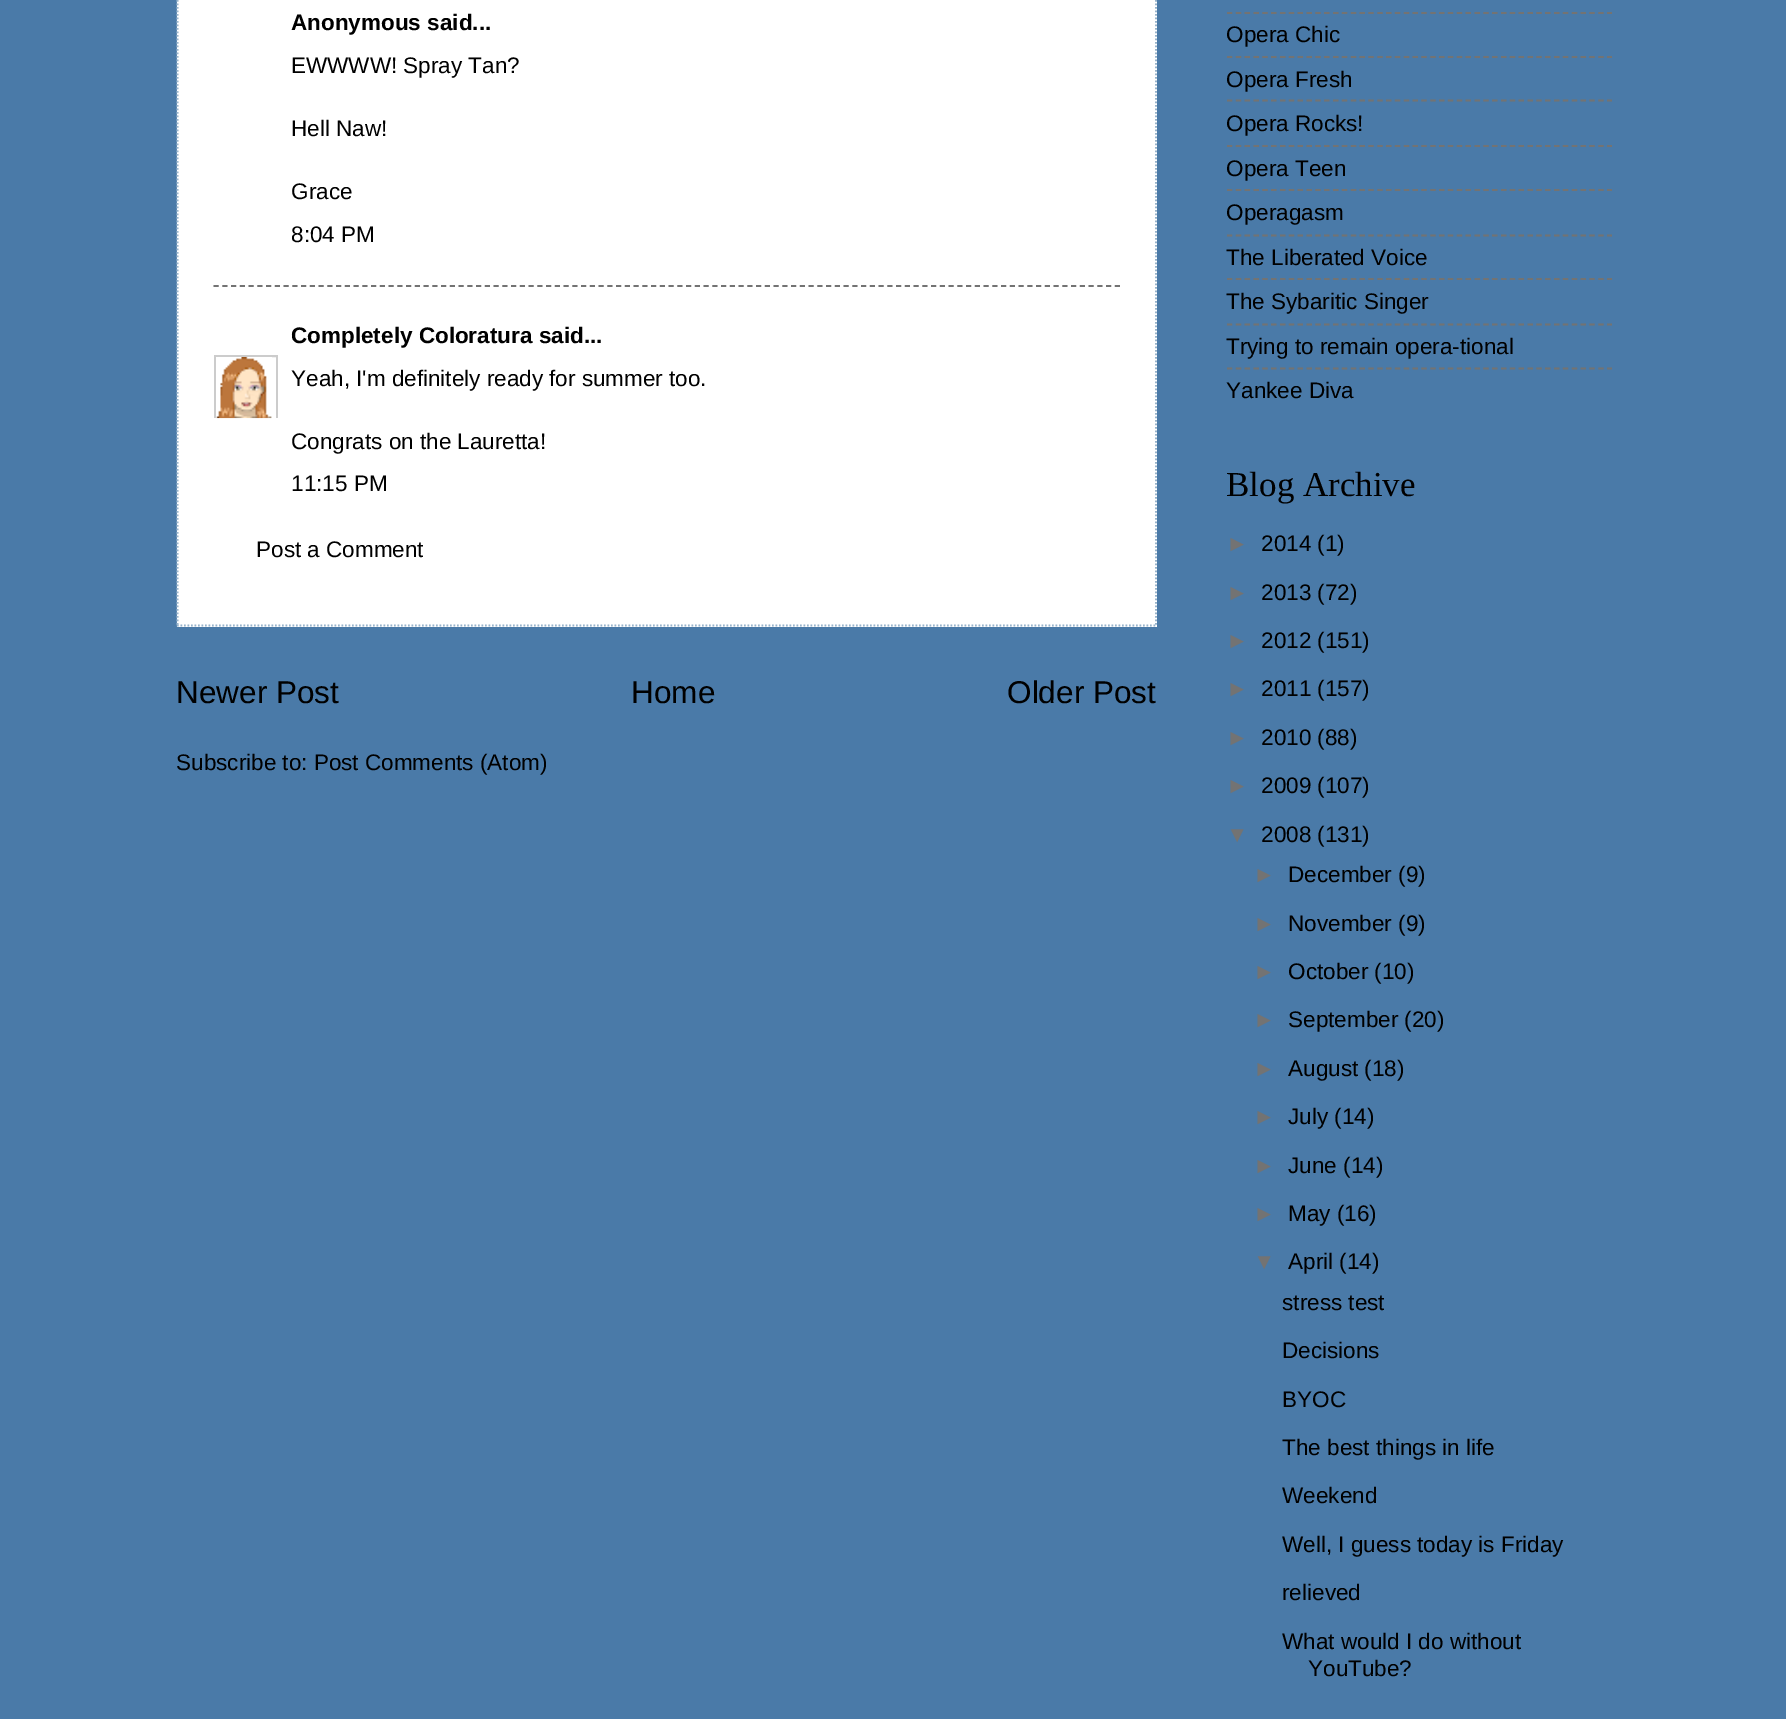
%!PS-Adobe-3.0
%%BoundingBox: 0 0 1786 1719
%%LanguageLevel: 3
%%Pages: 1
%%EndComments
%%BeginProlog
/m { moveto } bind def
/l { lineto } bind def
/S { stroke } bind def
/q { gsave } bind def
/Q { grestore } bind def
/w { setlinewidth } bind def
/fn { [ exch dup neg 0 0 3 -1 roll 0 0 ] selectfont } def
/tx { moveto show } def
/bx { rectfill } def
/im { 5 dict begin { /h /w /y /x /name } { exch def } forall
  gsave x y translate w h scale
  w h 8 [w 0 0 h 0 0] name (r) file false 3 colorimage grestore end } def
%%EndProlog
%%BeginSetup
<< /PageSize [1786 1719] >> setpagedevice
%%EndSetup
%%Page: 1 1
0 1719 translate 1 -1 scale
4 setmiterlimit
0.29 0.478 0.659 setrgbcolor
0 0 1786 1719 bx
1 setgray
177 0 980 627 bx
(image0.raw) 176 0 1 627 im
0.592 0.702 0.796 setrgbcolor
1.8 w
[1.75 1.75] 0 setdash
1156 -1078 m 1156 626.5 l S
177 625.5 m 1157 625.5 l S
177.5 -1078 m 177.5 626.5 l S
/LiberationSans-Bold 22.5 fn
0 setgray
(Anonymous said...) 291 30 tx
/LiberationSans-Regular 22.5 fn
(EWWWW! Spray Tan?) 291 73 tx
(Hell Naw!) 291 136 tx
(Grace) 291 199 tx
(8:04 PM) 291 242 tx
0.451 setgray
[5.25 3.5] 0 setdash
213.5 286 m 1120 286 l S
/LiberationSans-Bold 22.5 fn
0 setgray
(Completely Coloratura said...) 291 343 tx
q
214 355 64 63 rectclip
0.8 setgray
2 w
[] 0 setdash
215 356 62 63 rectstroke
Q
(image1.raw) 216 357 56 62 im
/LiberationSans-Regular 22.5 fn
(Yeah, I'm definitely ready for summer too.) 291 386 tx
(Congrats on the Lauretta!) 291 449 tx
(11:15 PM) 291 491 tx
(Post a Comment) 256 557 tx
/LiberationSans-Regular 31.5 fn
(Newer Post) 176 703 tx
(Home) 631 703 tx
(Older Post) 1007 703 tx
/LiberationSans-Regular 22.5 fn
(Subscribe to: Post Comments \(Atom\)) 176 770 tx
0.451 setgray
[5.25 3.59] 0 setdash
1227 13 m 1612 13 l S
0 setgray
(Opera Chic) 1226 42 tx
0.451 setgray
1227 57 m 1612 57 l S
0 setgray
(Opera Fresh) 1226 87 tx
0.451 setgray
1227 100.5 m 1612 100.5 l S
0 setgray
(Opera Rocks!) 1226 131 tx
0.451 setgray
1227 146 m 1612 146 l S
0 setgray
(Opera Teen) 1226 176 tx
0.451 setgray
1227 190 m 1612 190 l S
0 setgray
(Operagasm) 1226 220 tx
0.451 setgray
1227 235.5 m 1612 235.5 l S
0 setgray
(The Liberated Voice) 1226 265 tx
0.451 setgray
1227 279 m 1612 279 l S
0 setgray
(The Sybaritic Singer) 1226 309 tx
0.451 setgray
1227 324.5 m 1612 324.5 l S
0 setgray
(Trying to remain opera-tional) 1226 354 tx
0.451 setgray
1227 368.5 m 1612 368.5 l S
0 setgray
(Yankee Diva) 1226 398 tx
/LiberationSerif-Regular 35 fn
(Blog Archive) 1226 496 tx
/LiberationSans-Regular 22.5 fn
0.451 setgray
(►) 1226 551 tx
0 setgray
(2014 \(1\)) 1261 551 tx
0.451 setgray
(►) 1226 600 tx
0 setgray
(2013 \(72\)) 1261 600 tx
0.451 setgray
(►) 1226 648 tx
0 setgray
(2012 \(151\)) 1261 648 tx
0.451 setgray
(►) 1226 696 tx
0 setgray
(2011 \(157\)) 1261 696 tx
0.451 setgray
(►) 1226 745 tx
0 setgray
(2010 \(88\)) 1261 745 tx
0.451 setgray
(►) 1226 793 tx
0 setgray
(2009 \(107\)) 1261 793 tx
0.451 setgray
(▼) 1226 842 tx
0 setgray
(2008 \(131\)) 1261 842 tx
0.451 setgray
(►) 1253 882 tx
0 setgray
(December \(9\)) 1288 882 tx
0.451 setgray
(►) 1253 931 tx
0 setgray
(November \(9\)) 1288 931 tx
0.451 setgray
(►) 1253 979 tx
0 setgray
(October \(10\)) 1288 979 tx
0.451 setgray
(►) 1253 1027 tx
0 setgray
(September \(20\)) 1288 1027 tx
0.451 setgray
(►) 1253 1076 tx
0 setgray
(August \(18\)) 1288 1076 tx
0.451 setgray
(►) 1253 1124 tx
0 setgray
(July \(14\)) 1288 1124 tx
0.451 setgray
(►) 1253 1173 tx
0 setgray
(June \(14\)) 1288 1173 tx
0.451 setgray
(►) 1253 1221 tx
0 setgray
(May \(16\)) 1288 1221 tx
0.451 setgray
(▼) 1253 1269 tx
0 setgray
(April \(14\)) 1288 1269 tx
(stress test) 1282 1310 tx
(Decisions) 1282 1358 tx
(BYOC) 1282 1407 tx
(The best things in life) 1282 1455 tx
(Weekend) 1282 1503 tx
(Well, I guess today is Friday) 1282 1552 tx
(relieved) 1282 1600 tx
(What would I do without) 1282 1649 tx
(YouTube?) 1308 1676 tx
showpage
%%EOF
